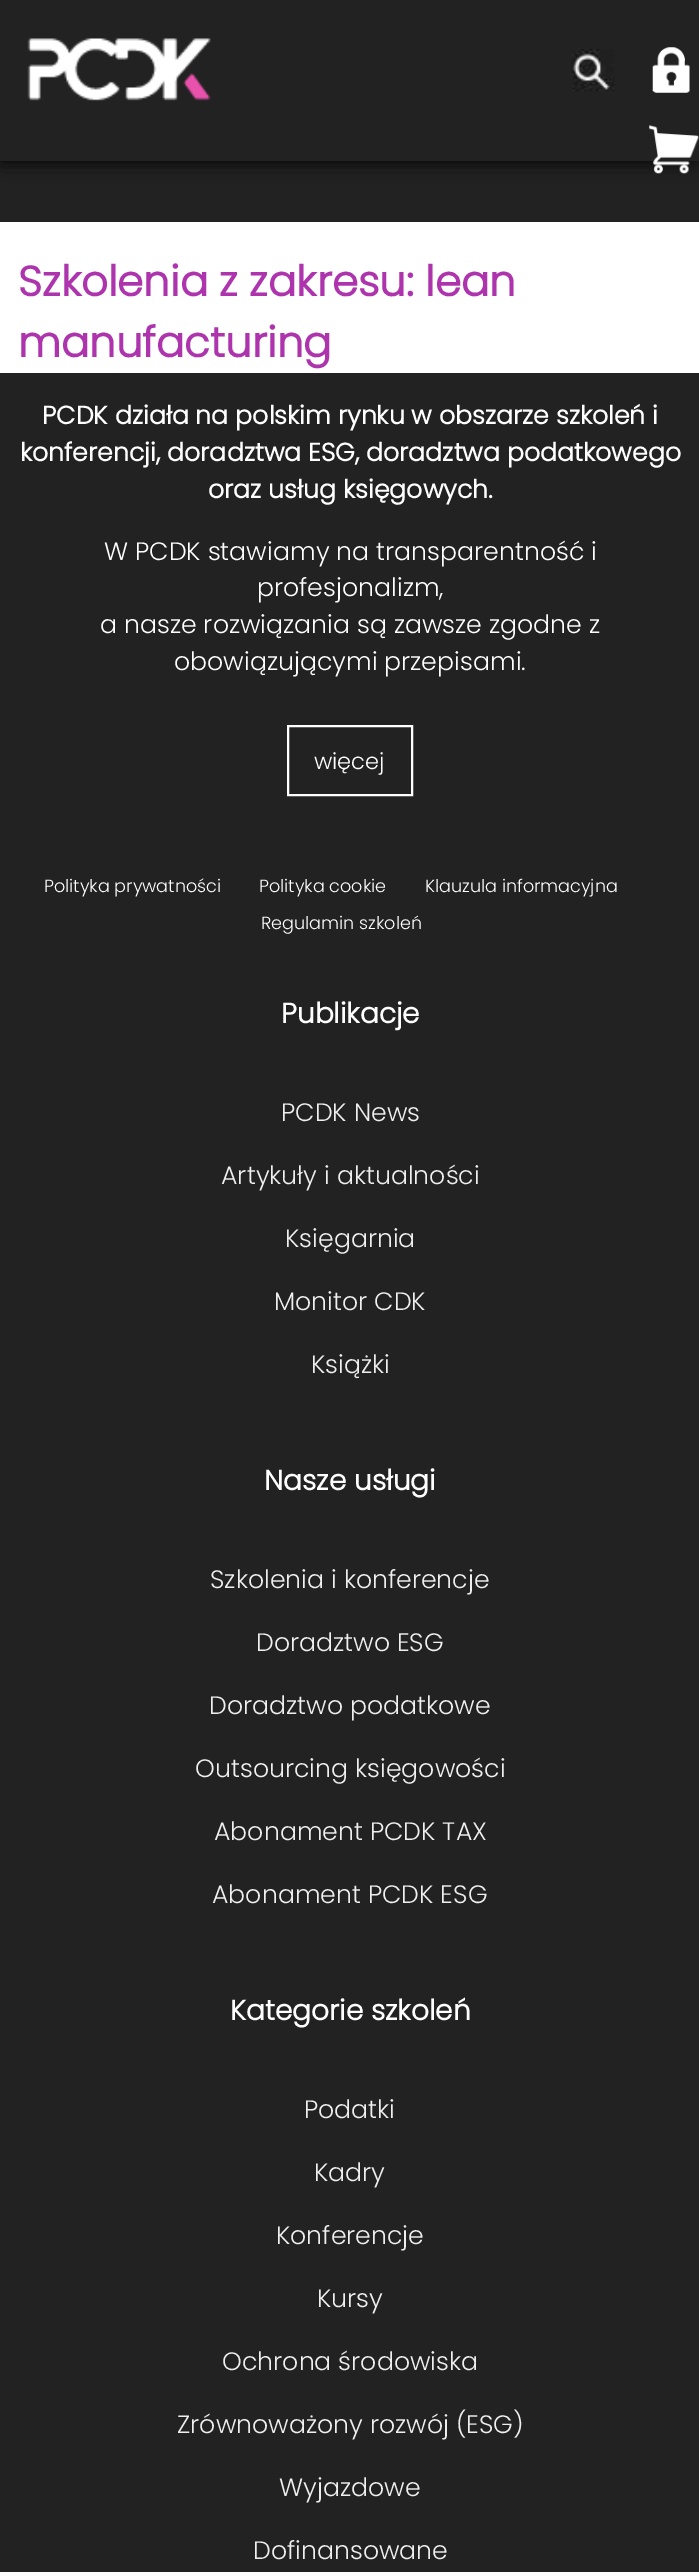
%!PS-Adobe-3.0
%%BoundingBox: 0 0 699 2572
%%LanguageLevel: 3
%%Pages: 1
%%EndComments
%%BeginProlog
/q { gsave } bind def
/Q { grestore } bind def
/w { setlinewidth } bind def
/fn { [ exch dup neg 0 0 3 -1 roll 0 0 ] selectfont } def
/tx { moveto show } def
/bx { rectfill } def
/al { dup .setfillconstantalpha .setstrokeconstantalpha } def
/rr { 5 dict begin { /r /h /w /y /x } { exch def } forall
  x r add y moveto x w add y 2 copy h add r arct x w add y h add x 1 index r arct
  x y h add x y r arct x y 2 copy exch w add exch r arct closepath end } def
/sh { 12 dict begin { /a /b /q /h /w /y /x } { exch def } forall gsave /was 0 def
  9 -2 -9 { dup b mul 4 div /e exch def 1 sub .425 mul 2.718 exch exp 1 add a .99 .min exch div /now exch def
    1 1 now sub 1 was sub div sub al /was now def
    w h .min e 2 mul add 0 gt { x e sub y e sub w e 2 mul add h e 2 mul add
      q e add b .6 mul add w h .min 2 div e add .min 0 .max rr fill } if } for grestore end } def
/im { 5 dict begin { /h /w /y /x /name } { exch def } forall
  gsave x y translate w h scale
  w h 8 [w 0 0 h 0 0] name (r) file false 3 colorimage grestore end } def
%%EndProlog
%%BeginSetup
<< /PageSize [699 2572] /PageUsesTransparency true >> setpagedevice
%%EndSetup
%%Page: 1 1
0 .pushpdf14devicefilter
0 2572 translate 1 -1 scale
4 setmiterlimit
0.133 setgray
0 0 699 2572 bx
q
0 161 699 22 rectclip
0 setgray
0 0 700 161 0 10.5 1 sh
Q
(image0.raw) 27 38 184 63 im
(image1.raw) 572 49 43 43 im
(image2.raw) 652 47 38 46 im
(image3.raw) 649 125 50 49 im
1 setgray
0 222 699 151 bx
/Poppins-Bold 42 fn
0.678 0.204 0.678 setrgbcolor
(Szkolenia z zakresu: lean) 18 296 tx
(manufacturing) 18 357 tx
/Poppins-Bold 25.2 fn
1 setgray
(PCDK działa na polskim rynku w obszarze szkoleń i) 42 424 tx
(konferencji, doradztwa ESG, doradztwa podatkowego) 20 461 tx
(oraz usług księgowych.) 208 498 tx
/Poppins-Light 25.2 fn
(W PCDK stawiamy na transparentność i) 104 560 tx
(profesjonalizm,) 257 596 tx
(a nasze rozwiązania są zawsze zgodne z) 100 633 tx
(obowiązującymi przepisami.) 174 670 tx
2 w
288 726 124 69 rectstroke
/Poppins-Light 22.5 fn
(więcej) 314 769 tx
/Poppins-Light 17.6 fn
(Polityka prywatności) 44 892 tx
(Polityka cookie) 259 892 tx
(Klauzula informacyjna) 425 892 tx
(Regulamin szkoleń) 261 929 tx
/Poppins-Bold 28 fn
(Publikacje) 281 1023 tx
/Poppins-Light 25.2 fn
0.937 setgray
(PCDK News) 281 1121 tx
(Artykuły i aktualności) 221 1184 tx
(Księgarnia) 285 1247 tx
(Monitor CDK) 274 1310 tx
(Książki) 311 1373 tx
/Poppins-Bold 28 fn
1 setgray
(Nasze usługi) 264 1490 tx
/Poppins-Light 25.2 fn
0.937 setgray
(Szkolenia i konferencje) 210 1588 tx
(Doradztwo ESG) 256 1651 tx
(Doradztwo podatkowe) 209 1714 tx
(Outsourcing księgowości) 195 1777 tx
(Abonament PCDK TAX) 214 1840 tx
(Abonament PCDK ESG) 212 1903 tx
/Poppins-Bold 28 fn
1 setgray
(Kategorie szkoleń) 230 2020 tx
/Poppins-Light 25.2 fn
0.937 setgray
(Podatki) 304 2118 tx
(Kadry) 314 2181 tx
(Konferencje) 276 2244 tx
(Kursy) 317 2307 tx
(Ochrona środowiska) 222 2370 tx
(Zrównoważony rozwój \(ESG\)) 177 2433 tx
(Wyjazdowe) 279 2496 tx
(Dofinansowane) 253 2559 tx
.poppdf14devicefilter showpage
%%EOF
